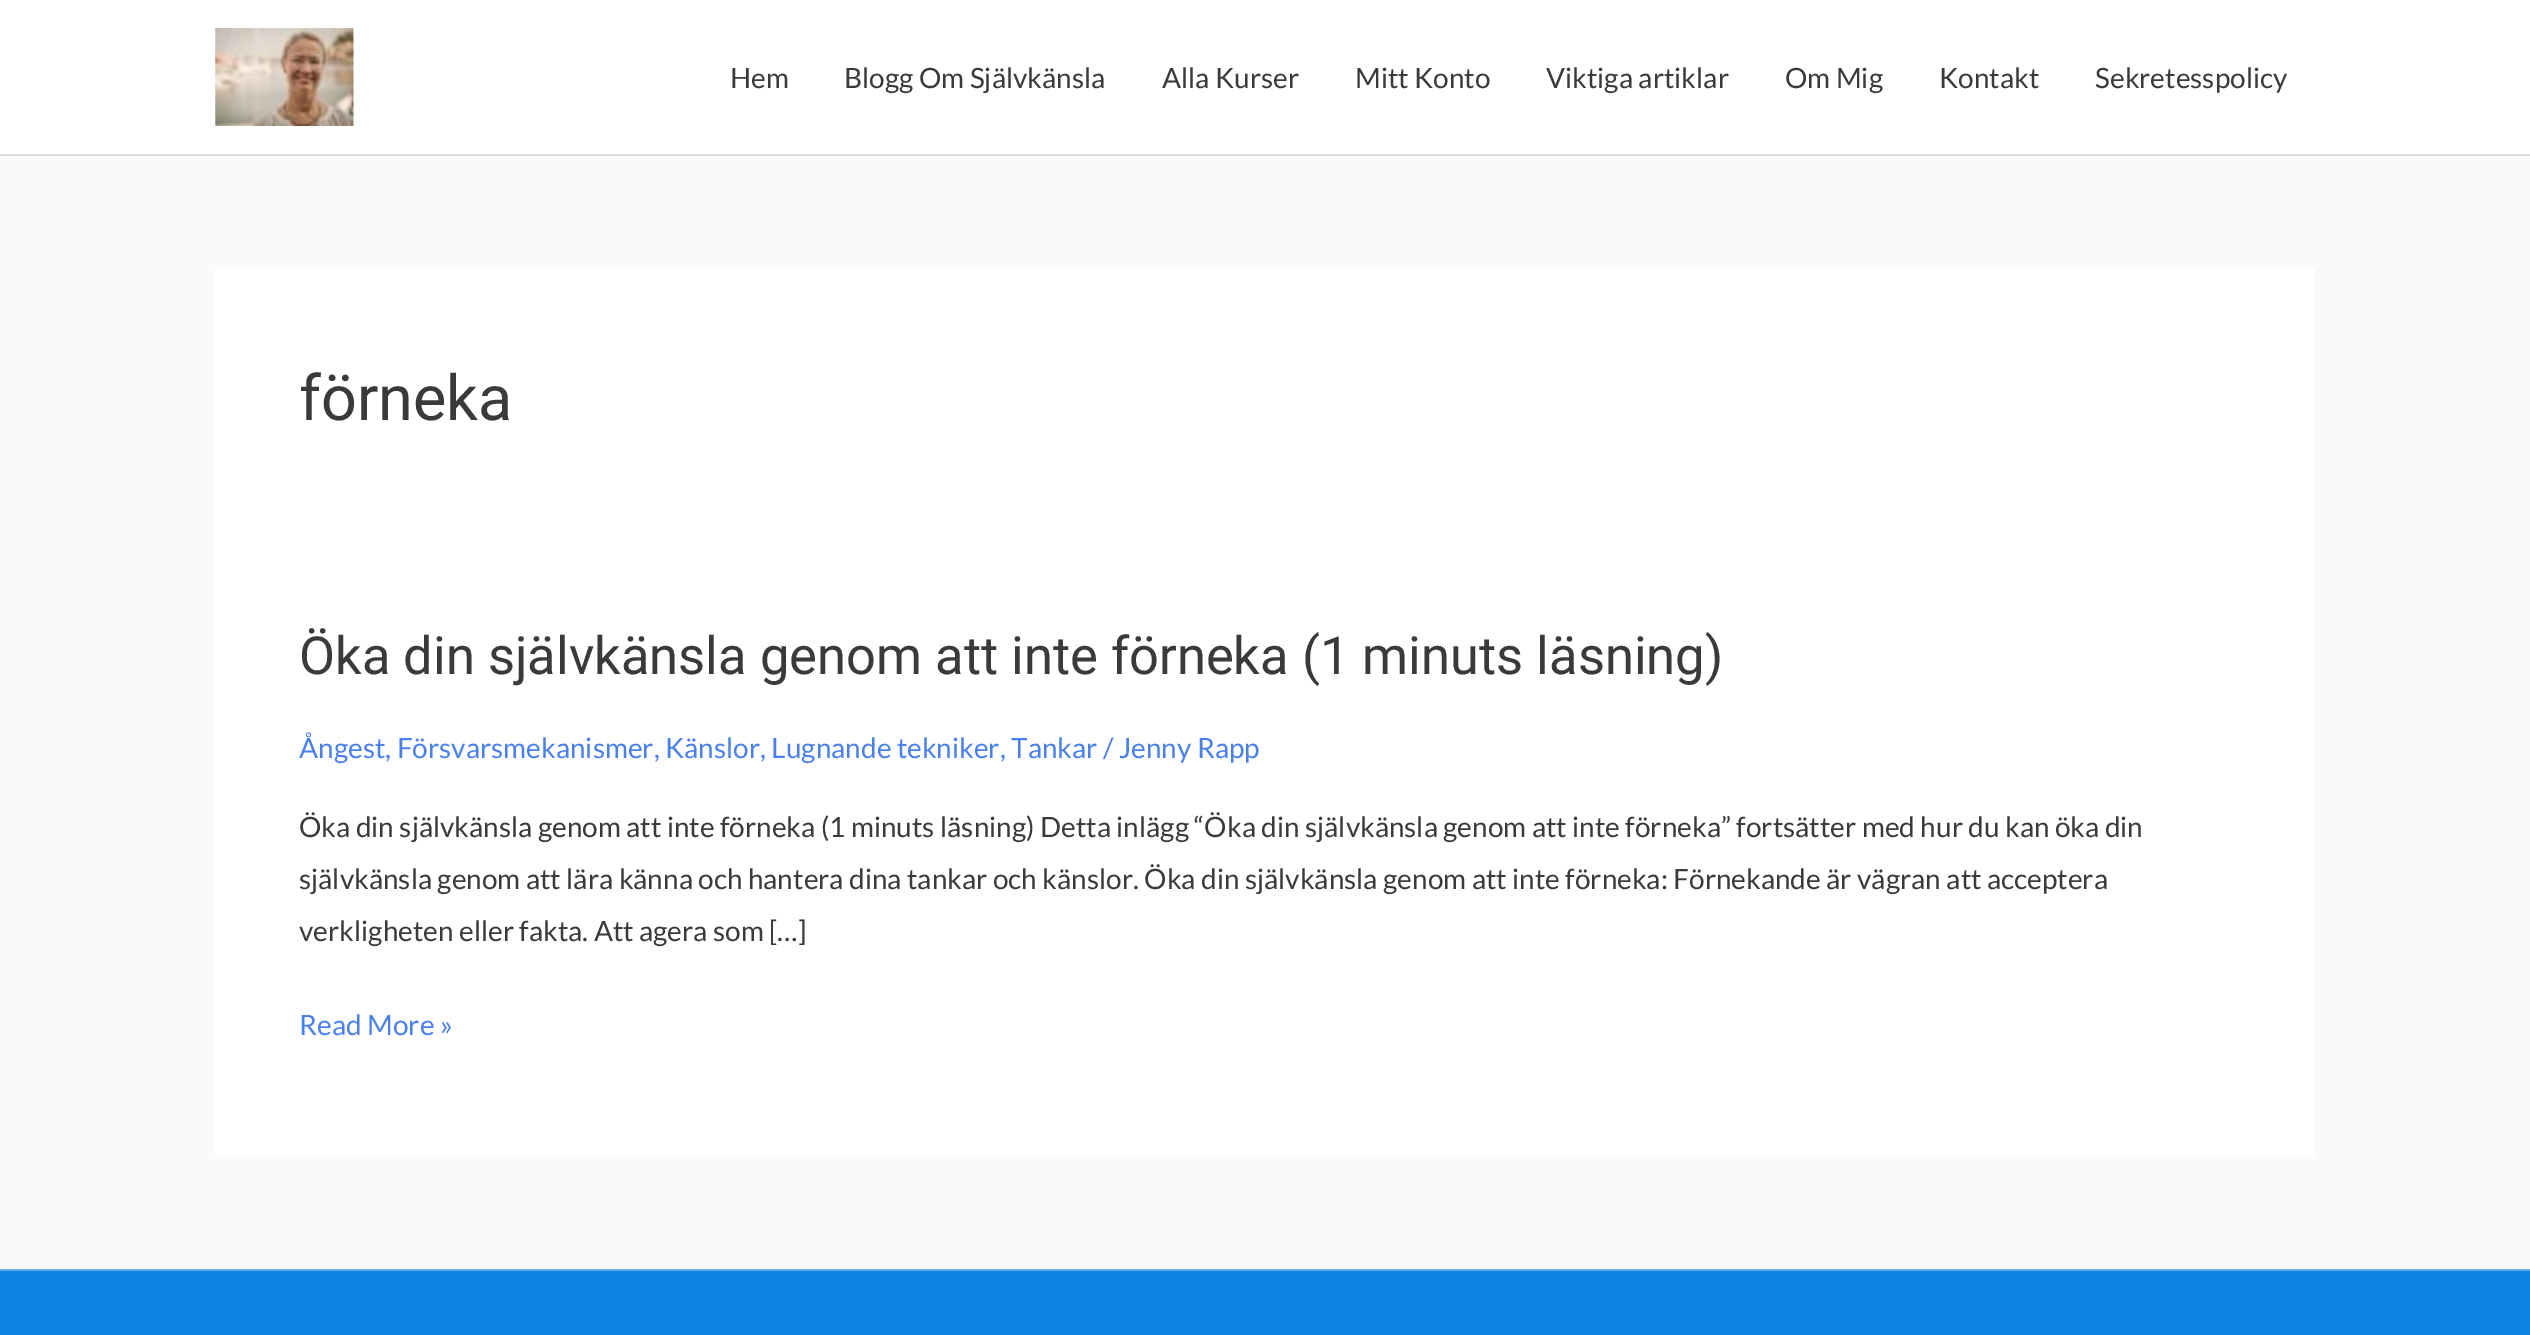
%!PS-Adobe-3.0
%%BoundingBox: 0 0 2530 1335
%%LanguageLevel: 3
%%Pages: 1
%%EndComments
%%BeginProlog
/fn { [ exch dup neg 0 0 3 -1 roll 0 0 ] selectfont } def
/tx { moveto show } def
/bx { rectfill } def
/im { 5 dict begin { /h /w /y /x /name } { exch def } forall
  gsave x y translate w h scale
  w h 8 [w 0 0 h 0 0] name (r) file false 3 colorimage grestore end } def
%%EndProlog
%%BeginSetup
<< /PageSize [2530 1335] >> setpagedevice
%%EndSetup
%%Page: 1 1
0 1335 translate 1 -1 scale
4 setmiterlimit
0.98 setgray
0 0 2530 1335 bx
1 setgray
0 0 2530 154 bx
0.859 0.871 0.878 setrgbcolor
0 154 2530 2 bx
(image0.raw) 215 28 139 98 im
/Lato-Regular 28 fn
0.227 setgray
(Hem) 730 88 tx
(Blogg Om Självkänsla) 844 88 tx
(Alla Kurser) 1162 88 tx
(Mitt Konto) 1355 88 tx
(Viktiga artiklar) 1546 88 tx
(Om Mig) 1785 88 tx
(Kontakt) 1939 88 tx
(Sekretesspolicy) 2095 88 tx
1 setgray
215 268 2100 889 bx
/Roboto-Regular 63 fn
0.227 setgray
(förneka) 299 420 tx
/Roboto-Regular 52.5 fn
(Öka din självkänsla genom att inte förneka \(1 minuts läsning\)) 299 674 tx
/Lato-Regular 28 fn
0.29 0.502 0.925 setrgbcolor
(Ångest, Försvarsmekanismer, Känslor, Lugnande tekniker, Tankar / Jenny Rapp) 299 758 tx
0.227 setgray
(Öka din självkänsla genom att inte förneka \(1 minuts läsning\) Detta inlägg “Öka din självkänsla genom att inte förneka” fortsätter med hur du kan öka din) 299 837 tx
(självkänsla genom att lära känna och hantera dina tankar och känslor. Öka din självkänsla genom att inte förneka: Förnekande är vägran att acceptera) 299 889 tx
(verkligheten eller fakta. Att agera som […]) 299 941 tx
0.29 0.502 0.925 setrgbcolor
(Read More ») 299 1035 tx
0.396 0.694 0.925 setrgbcolor
0 1269 2530 2 bx
0.035 0.518 0.89 setrgbcolor
0 1271 2530 64 bx
showpage
%%EOF
